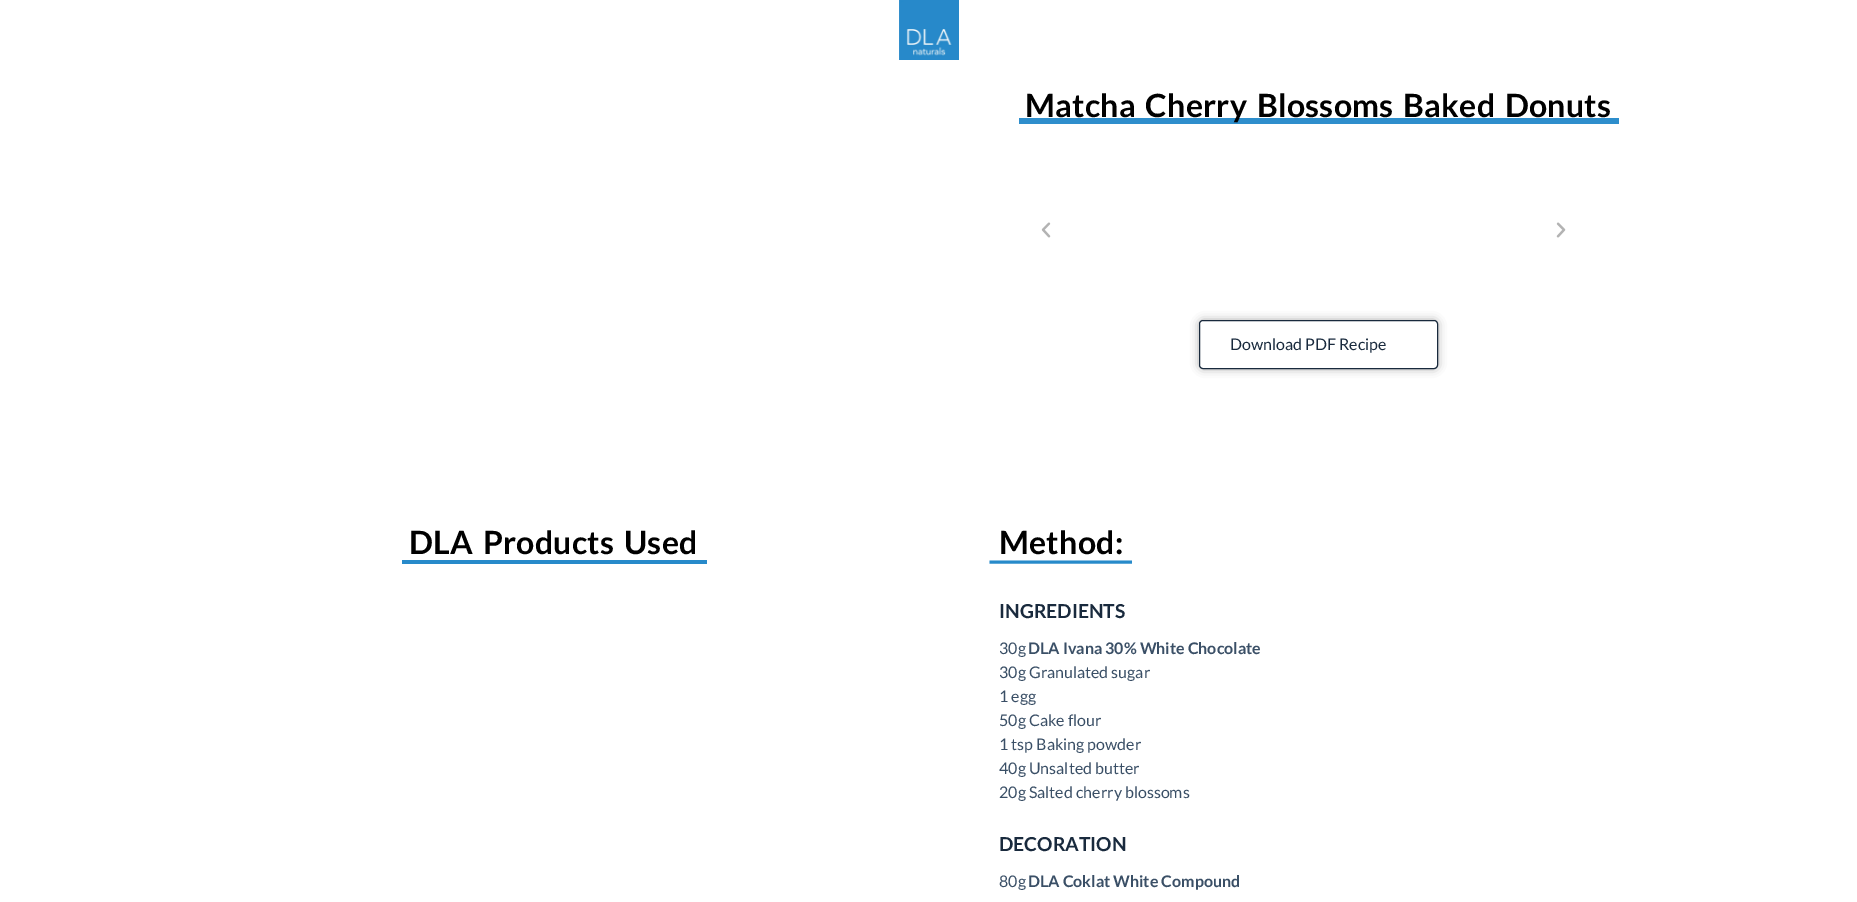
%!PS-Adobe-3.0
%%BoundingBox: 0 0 1857 902
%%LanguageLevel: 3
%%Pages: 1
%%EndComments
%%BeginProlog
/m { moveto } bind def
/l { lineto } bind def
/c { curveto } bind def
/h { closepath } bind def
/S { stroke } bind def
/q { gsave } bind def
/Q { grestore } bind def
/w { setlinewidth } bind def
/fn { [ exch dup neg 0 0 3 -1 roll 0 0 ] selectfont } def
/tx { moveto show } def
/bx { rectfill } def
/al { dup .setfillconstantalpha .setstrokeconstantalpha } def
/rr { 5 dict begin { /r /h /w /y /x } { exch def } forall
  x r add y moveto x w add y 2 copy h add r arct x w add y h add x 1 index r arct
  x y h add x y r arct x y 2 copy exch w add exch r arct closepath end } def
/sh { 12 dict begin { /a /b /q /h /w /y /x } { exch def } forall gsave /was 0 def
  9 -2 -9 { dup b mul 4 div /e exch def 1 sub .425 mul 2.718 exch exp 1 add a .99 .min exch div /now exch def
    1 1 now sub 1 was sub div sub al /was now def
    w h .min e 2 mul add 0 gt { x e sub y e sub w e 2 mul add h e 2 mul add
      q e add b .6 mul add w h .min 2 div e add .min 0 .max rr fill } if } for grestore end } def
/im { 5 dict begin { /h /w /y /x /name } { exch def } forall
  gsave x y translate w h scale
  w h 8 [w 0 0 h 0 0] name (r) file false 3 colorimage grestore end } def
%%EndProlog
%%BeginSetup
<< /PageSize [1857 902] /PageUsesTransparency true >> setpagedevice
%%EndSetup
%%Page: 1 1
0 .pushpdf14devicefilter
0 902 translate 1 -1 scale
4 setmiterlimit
1 setgray
0 0 1857 902 bx
(image0.raw) 899 0 60 60 im
0.18 0.557 0.8 setrgbcolor
1019 118 600 6 bx
/Lato-Bold 32 fn
0 setgray
1025 117 m 3 0 32 0.3 0 (Matcha Cherry Blossoms Baked Donuts) awidthshow
(image1.raw) 1041 222 10 16 im
(image2.raw) 1556 222 10 16 im
q
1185 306 m 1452 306 l 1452 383 l 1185 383 l h 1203 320 m 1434 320 l 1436 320 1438 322 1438 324 c 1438 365 l 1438 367 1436 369 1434 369 c 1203 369 l 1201 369 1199 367 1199 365 c 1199 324 l 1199 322 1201 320 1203 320 c h eoclip newpath
1201 322 235 45 2 5 0.5 sh
Q
0.098 0.165 0.239 setrgbcolor
1199.5 320.5 238 48 3.5 rr S
/Lato-Regular 16 fn
(Download PDF Recipe) 1230 350 tx
/Lato-Bold 32 fn
0 setgray
409 554 m 3 0 32 0.3 0 (DLA Products Used) awidthshow
0.153 0.541 0.792 setrgbcolor
402 560 305 4 bx
0 setgray
999 554 m 0.3 0 (Method:) ashow
0.153 0.541 0.792 setrgbcolor
3 w
989.5 562 m 1132 562 l S
/Lato-Bold 19.25 fn
0.098 0.165 0.239 setrgbcolor
(INGREDIENTS) 999 618 tx
/Lato-Regular 16 fn
0.227 0.31 0.4 setrgbcolor
(30g) 999 654 tx
/Lato-Bold 16 fn
(DLA Ivana 30% White Chocolate) 1028 654 tx
/Lato-Regular 16 fn
(30g Granulated sugar) 999 678 tx
(1 egg) 999 702 tx
(50g Cake flour) 999 726 tx
(1 tsp Baking powder) 999 750 tx
(40g Unsalted butter) 999 774 tx
(20g Salted cherry blossoms) 999 798 tx
/Lato-Bold 19.25 fn
0.098 0.165 0.239 setrgbcolor
(DECORATION) 999 851 tx
/Lato-Regular 16 fn
0.227 0.31 0.4 setrgbcolor
(80g) 999 887 tx
/Lato-Bold 16 fn
(DLA Coklat White Compound) 1028 887 tx
.poppdf14devicefilter showpage
%%EOF
